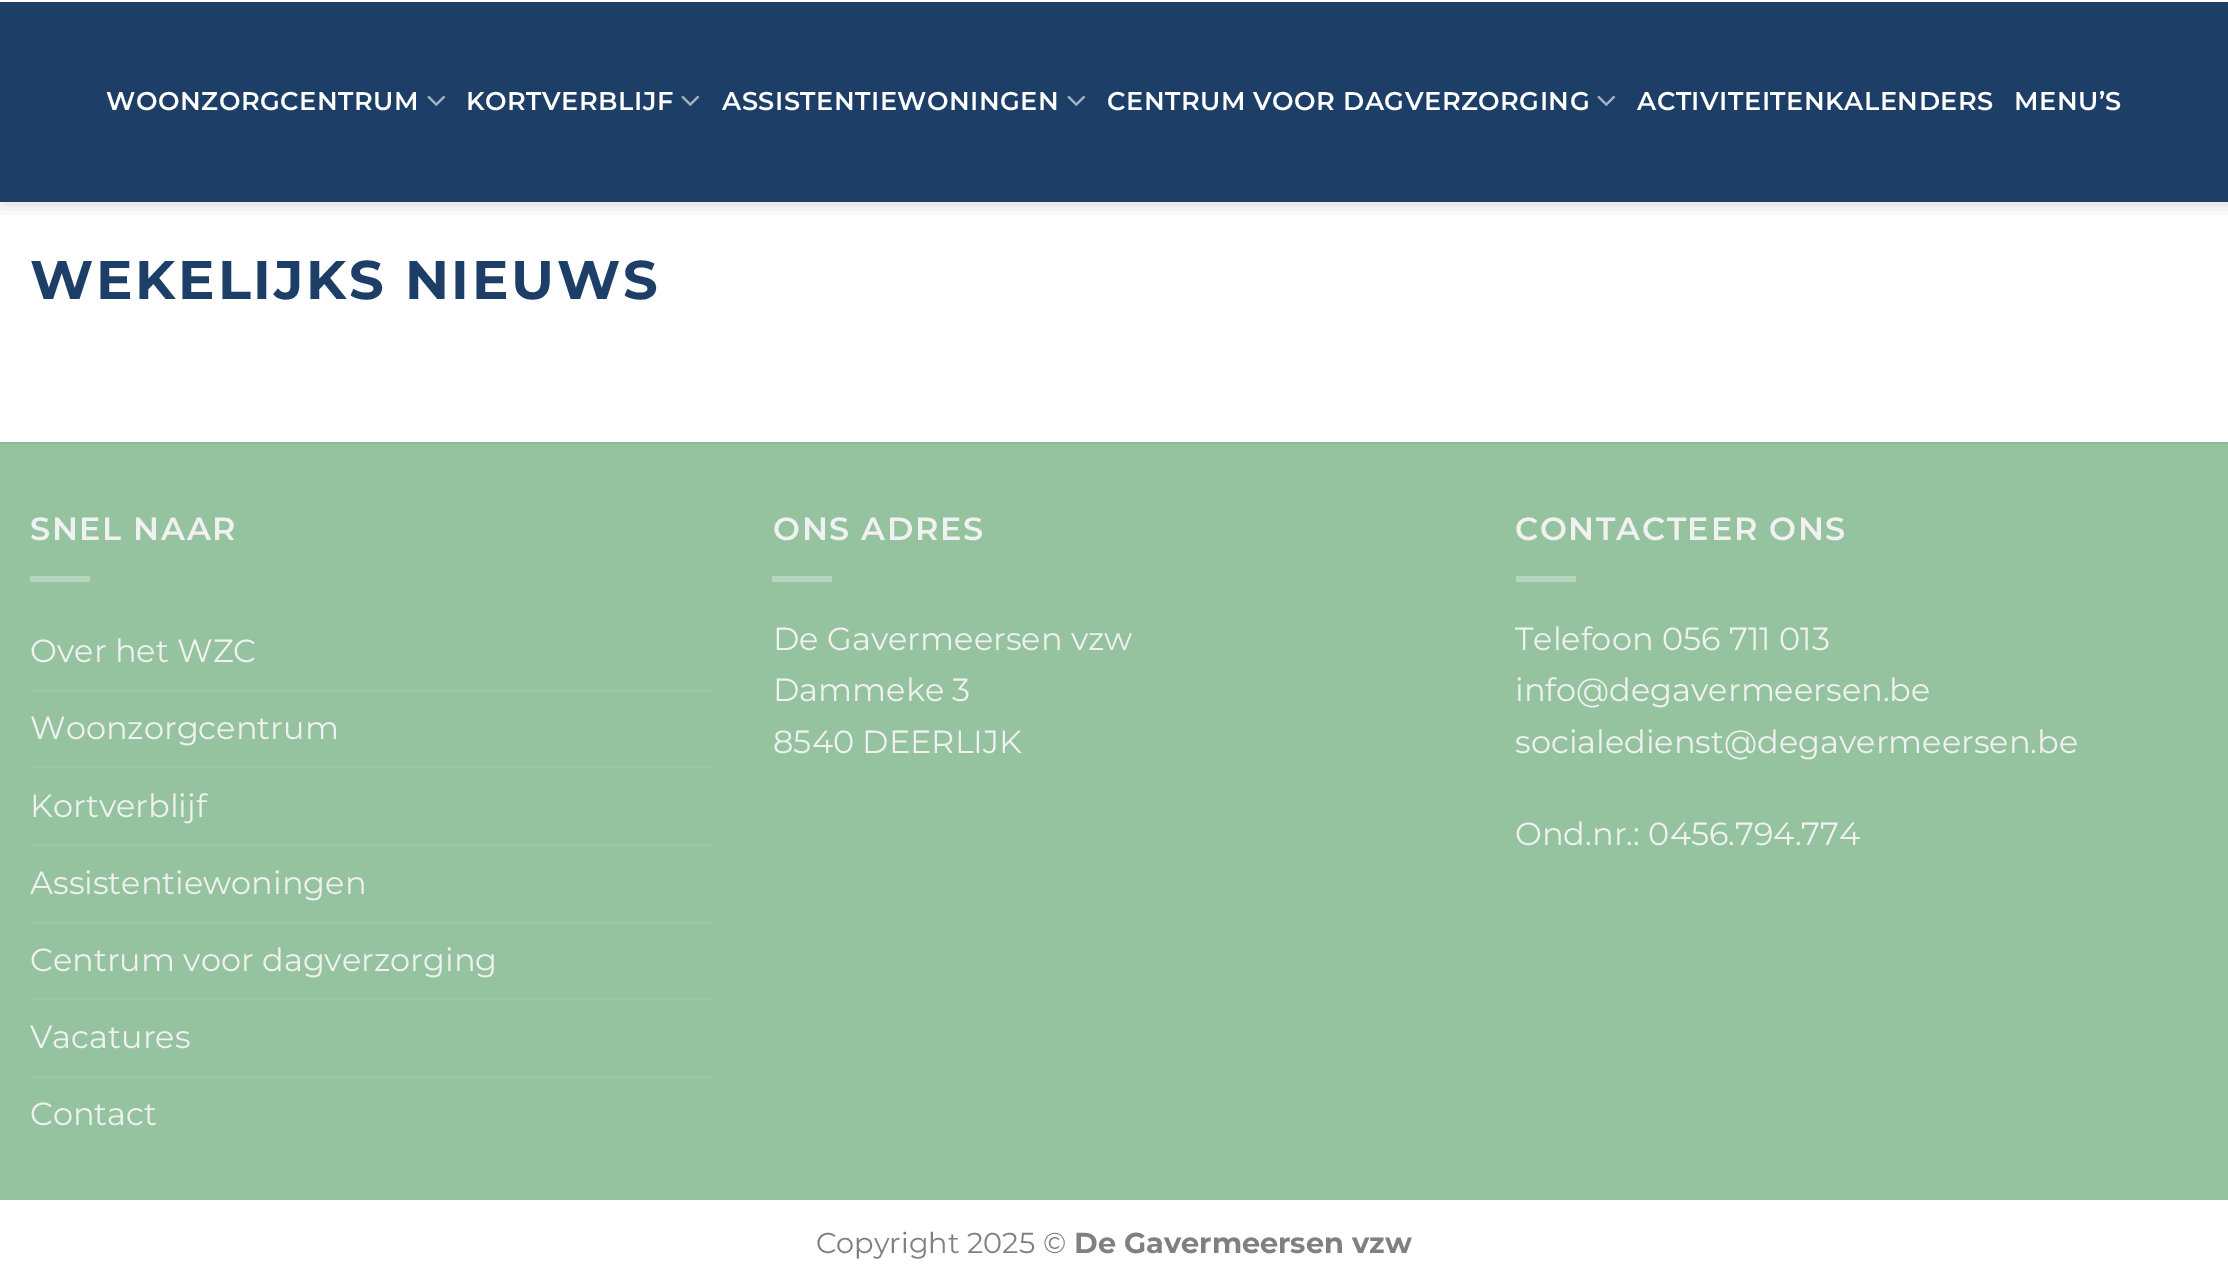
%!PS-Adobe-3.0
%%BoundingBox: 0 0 2228 1272
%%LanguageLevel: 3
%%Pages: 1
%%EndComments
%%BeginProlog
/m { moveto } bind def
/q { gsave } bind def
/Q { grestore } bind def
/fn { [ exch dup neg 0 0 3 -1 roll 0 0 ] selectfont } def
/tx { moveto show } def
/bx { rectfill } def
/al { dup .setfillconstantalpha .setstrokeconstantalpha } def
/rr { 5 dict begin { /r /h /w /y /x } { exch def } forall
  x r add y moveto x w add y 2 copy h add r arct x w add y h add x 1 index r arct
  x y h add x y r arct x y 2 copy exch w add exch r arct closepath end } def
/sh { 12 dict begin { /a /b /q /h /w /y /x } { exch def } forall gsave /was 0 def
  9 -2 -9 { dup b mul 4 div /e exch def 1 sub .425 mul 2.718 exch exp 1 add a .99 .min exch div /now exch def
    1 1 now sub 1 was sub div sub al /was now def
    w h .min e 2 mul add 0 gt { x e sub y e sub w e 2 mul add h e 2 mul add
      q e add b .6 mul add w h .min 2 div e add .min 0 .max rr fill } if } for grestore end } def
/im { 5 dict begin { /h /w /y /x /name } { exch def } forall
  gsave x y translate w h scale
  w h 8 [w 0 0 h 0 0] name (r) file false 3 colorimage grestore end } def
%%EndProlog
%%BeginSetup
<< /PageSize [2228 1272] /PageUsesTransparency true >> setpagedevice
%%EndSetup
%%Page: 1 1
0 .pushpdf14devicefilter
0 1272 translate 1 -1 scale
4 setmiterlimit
1 setgray
0 0 2228 1272 bx
q
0 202 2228 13 rectclip
0 setgray
2 -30 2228 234 0 10 0.15 sh
Q
0.114 0.243 0.4 setrgbcolor
0 2 2228 200 bx
/Montserrat-SemiBold 25.6 fn
1 setgray
106 110 m 0.5 0 (WOONZORGCENTRUM) ashow
(image0.raw) 427 95 19 11 im
466 110 m 0.5 0 (KORTVERBLIJF) ashow
(image0.raw) 681 95 19 11 im
722 110 m 0.5 0 (ASSISTENTIEWONINGEN) ashow
(image0.raw) 1067 95 19 11 im
1107 110 m 0.5 0 (CENTRUM VOOR DAGVERZORGING) ashow
(image0.raw) 1597 95 19 11 im
1637 110 m 0.5 0 (ACTIVITEITENKALENDERS) ashow
2014 110 m 0.5 0 (MENU’S) ashow
/Montserrat-Bold 54.4 fn
0.114 0.243 0.4 setrgbcolor
30 299 m 2.75 0 (WEKELIJKS NIEUWS) ashow
0.584 0.765 0.627 setrgbcolor
0 444 2228 756 bx
0.557 0.725 0.596 setrgbcolor
0 442 2228 2 bx
/Montserrat-SemiBold 32 fn
0.945 setgray
30 540 m 1.6 0 (SNEL NAAR) ashow
0.71 0.835 0.741 setrgbcolor
30 576 60 6 bx
/Montserrat-Regular 32 fn
0.945 setgray
(Over het WZC) 30 662 tx
0.616 0.784 0.659 setrgbcolor
30 690 682 2 bx
0.945 setgray
(Woonzorgcentrum) 30 739 tx
0.616 0.784 0.659 setrgbcolor
30 766 682 2 bx
0.945 setgray
(Kortverblijf) 30 817 tx
0.616 0.784 0.659 setrgbcolor
30 844 682 2 bx
0.945 setgray
(Assistentiewoningen) 30 894 tx
0.616 0.784 0.659 setrgbcolor
30 922 682 2 bx
0.945 setgray
(Centrum voor dagverzorging) 30 971 tx
0.616 0.784 0.659 setrgbcolor
30 998 682 2 bx
0.945 setgray
(Vacatures) 30 1048 tx
0.616 0.784 0.659 setrgbcolor
30 1076 682 2 bx
0.945 setgray
(Contact) 30 1125 tx
/Montserrat-SemiBold 32 fn
773 540 m 1.6 0 (ONS ADRES) ashow
0.71 0.835 0.741 setrgbcolor
772 576 60 6 bx
/Montserrat-Regular 32 fn
0.945 setgray
(De Gavermeersen vzw) 773 650 tx
(Dammeke 3) 773 701 tx
(8540 DEERLIJK) 773 753 tx
/Montserrat-SemiBold 32 fn
1515 540 m 1.6 0 (CONTACTEER ONS) ashow
0.71 0.835 0.741 setrgbcolor
1516 576 60 6 bx
/Montserrat-Regular 32 fn
0.945 setgray
(Telefoon 056 711 013) 1515 650 tx
(info@degavermeersen.be) 1515 701 tx
(socialedienst@degavermeersen.be) 1515 753 tx
(Ond.nr.: 0456.794.774) 1515 845 tx
/Montserrat-Regular 28.75 fn
0.502 setgray
(Copyright 2025 ©) 816 1253 tx
/Montserrat-Bold 28.75 fn
(De Gavermeersen vzw) 1074 1253 tx
.poppdf14devicefilter showpage
%%EOF
